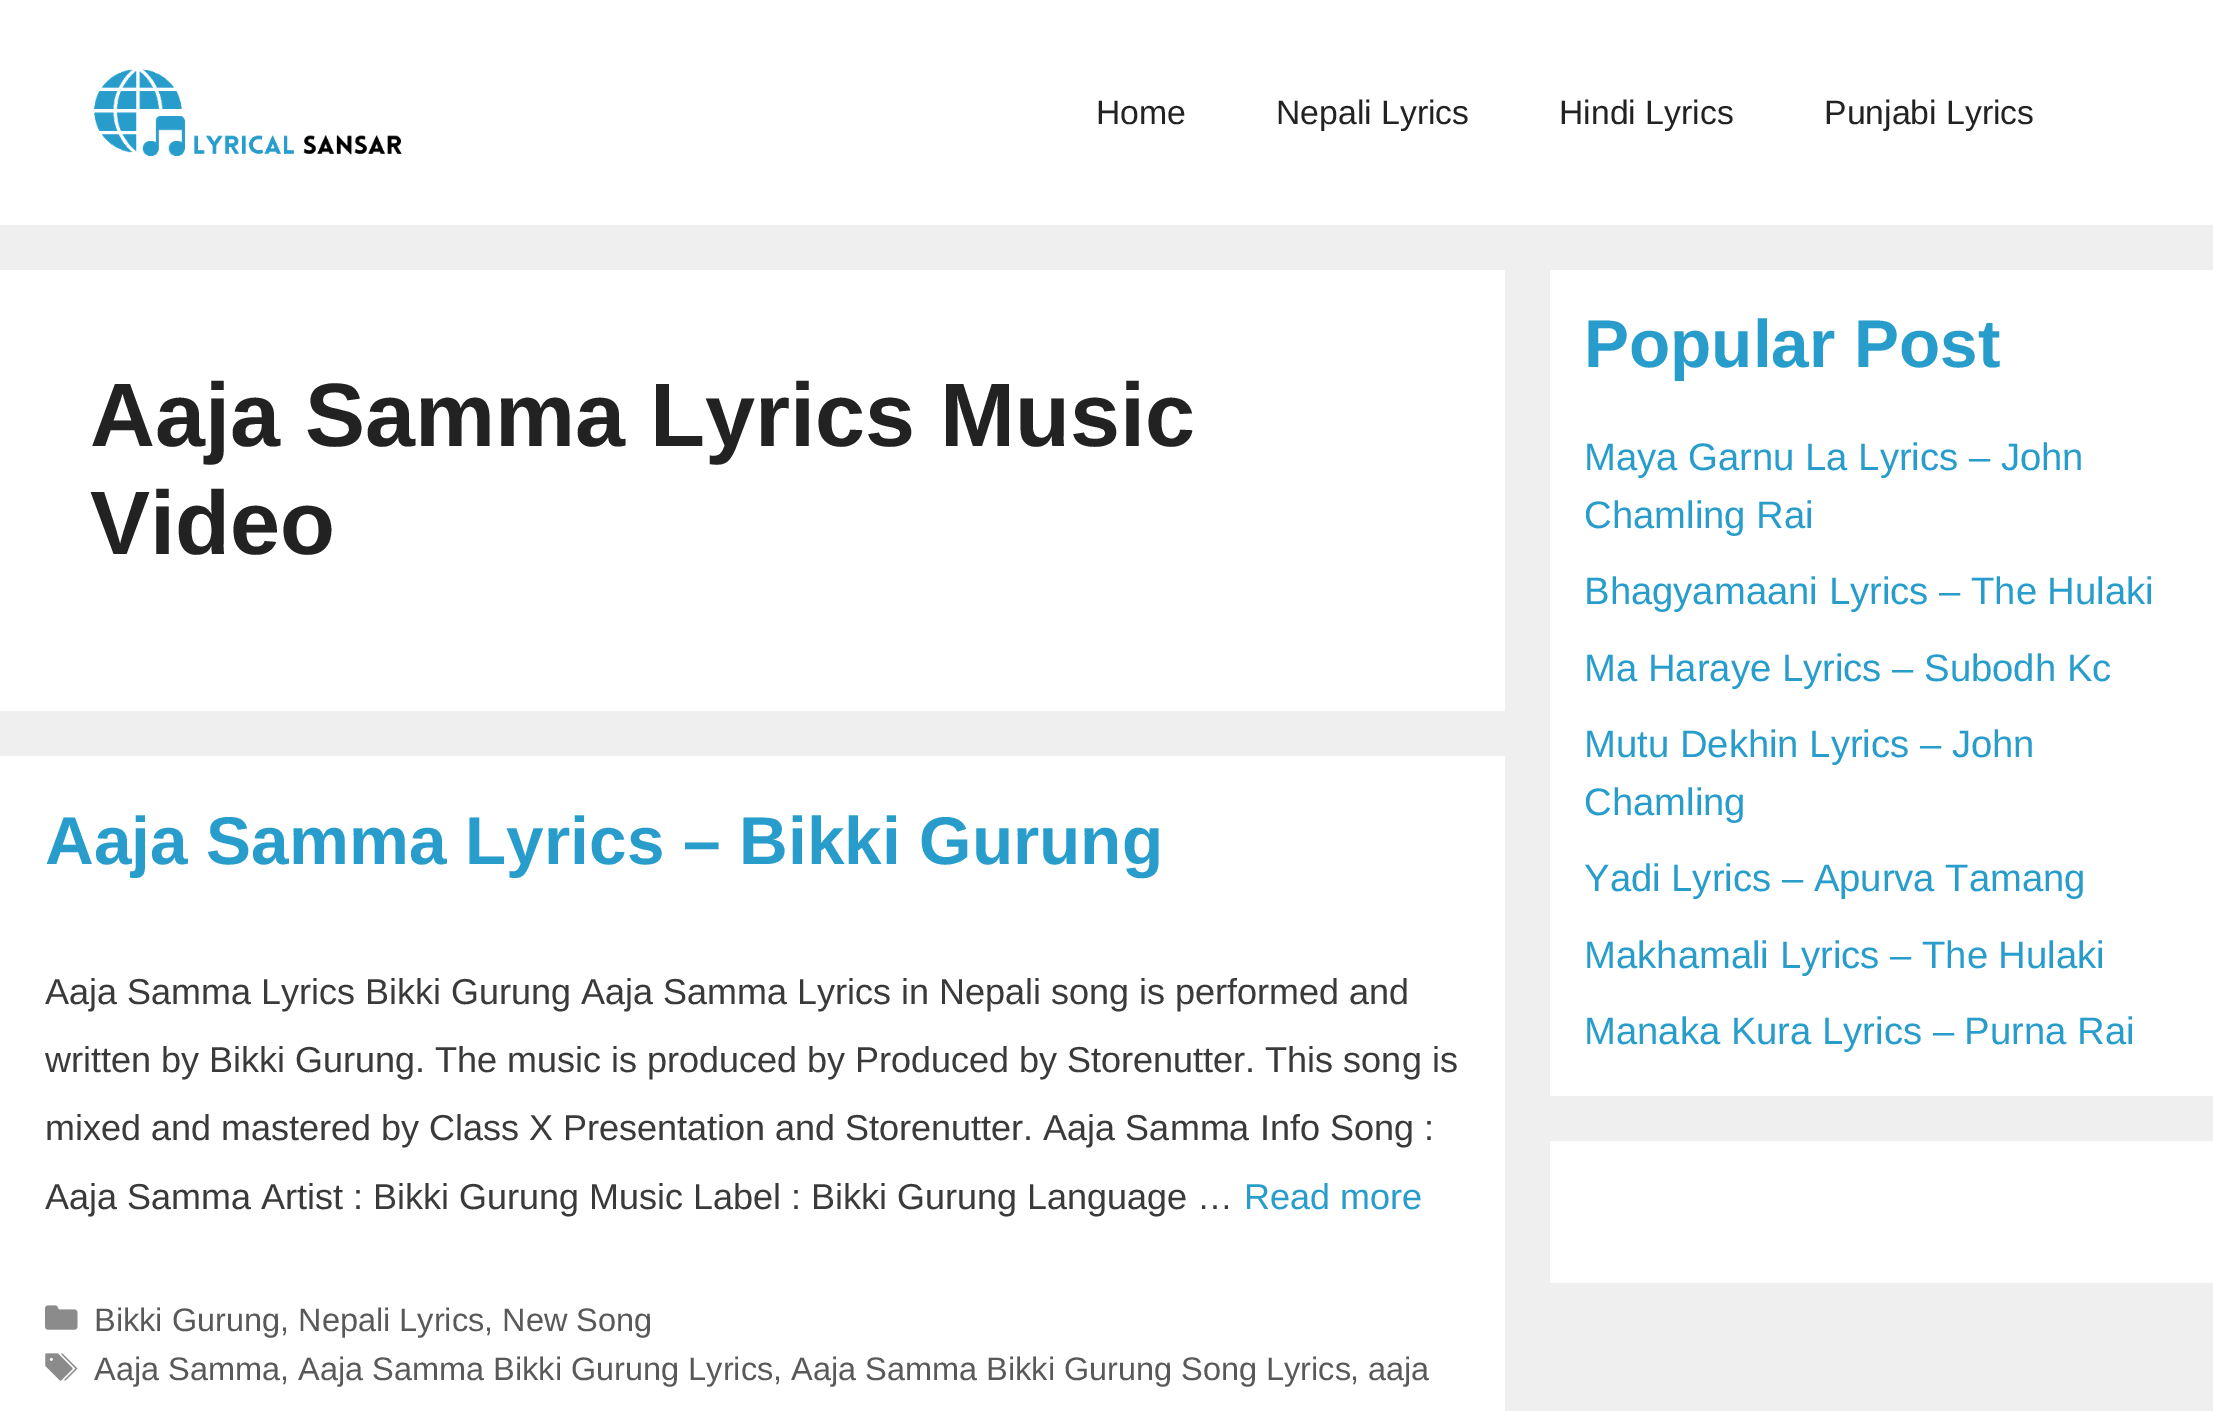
%!PS-Adobe-3.0
%%BoundingBox: 0 0 2213 1411
%%LanguageLevel: 3
%%Pages: 1
%%EndComments
%%BeginProlog
/fn { [ exch dup neg 0 0 3 -1 roll 0 0 ] selectfont } def
/tx { moveto show } def
/bx { rectfill } def
/im { 5 dict begin { /h /w /y /x /name } { exch def } forall
  gsave x y translate w h scale
  w h 8 [w 0 0 h 0 0] name (r) file false 3 colorimage grestore end } def
%%EndProlog
%%BeginSetup
<< /PageSize [2213 1411] >> setpagedevice
%%EndSetup
%%Page: 1 1
0 1411 translate 1 -1 scale
4 setmiterlimit
0.937 setgray
0 0 2213 1411 bx
1 setgray
0 0 2213 225 bx
(image0.raw) 94 69 308 87 im
/LiberationSans-Regular 33.75 fn
0.133 setgray
(Home) 1096 124 tx
(Nepali Lyrics) 1276 124 tx
(Hindi Lyrics) 1559 124 tx
(Punjabi Lyrics) 1824 124 tx
1 setgray
0 270 1505 441 bx
/LiberationSans-Bold 90 fn
0.133 setgray
(Aaja Samma Lyrics Music) 90 446 tx
(Video) 90 554 tx
1 setgray
0 756 1505 655 bx
/LiberationSans-Bold 67.5 fn
0.157 0.616 0.8 setrgbcolor
(Aaja Samma Lyrics – Bikki Gurung) 45 864 tx
/LiberationSans-Regular 36 fn
0.227 setgray
(Aaja Samma Lyrics Bikki Gurung Aaja Samma Lyrics in Nepali song is performed and) 45 1004 tx
(written by Bikki Gurung. The music is produced by Produced by Storenutter. This song is) 45 1072 tx
(mixed and mastered by Class X Presentation and Storenutter. Aaja Samma Info Song :) 45 1140 tx
(Aaja Samma Artist : Bikki Gurung Music Label : Bikki Gurung Language …) 45 1209 tx
0.157 0.616 0.8 setrgbcolor
(Read more) 1244 1209 tx
(image1.raw) 45 1305 33 25 im
/LiberationSans-Regular 32.5 fn
0.349 setgray
(Bikki Gurung, Nepali Lyrics, New Song) 94 1331 tx
(image2.raw) 45 1353 33 28 im
(Aaja Samma, Aaja Samma Bikki Gurung Lyrics) 94 1380 tx
(, Aaja Samma Bikki Gurung Song Lyrics) 773 1380 tx
(, aaja) 1350 1380 tx
1 setgray
1550 270 663 826 bx
/LiberationSans-Bold 67.5 fn
0.157 0.616 0.8 setrgbcolor
(Popular Post) 1584 367 tx
/LiberationSans-Regular 38.25 fn
(Maya Garnu La Lyrics – John) 1584 470 tx
(Chamling Rai) 1584 528 tx
(Bhagyamaani Lyrics – The Hulaki) 1584 604 tx
(Ma Haraye Lyrics – Subodh Kc) 1584 681 tx
(Mutu Dekhin Lyrics – John) 1584 757 tx
(Chamling) 1584 815 tx
(Yadi Lyrics – Apurva Tamang) 1584 891 tx
(Makhamali Lyrics – The Hulaki) 1584 968 tx
(Manaka Kura Lyrics – Purna Rai) 1584 1044 tx
1 setgray
1550 1141 663 142 bx
showpage
%%EOF
